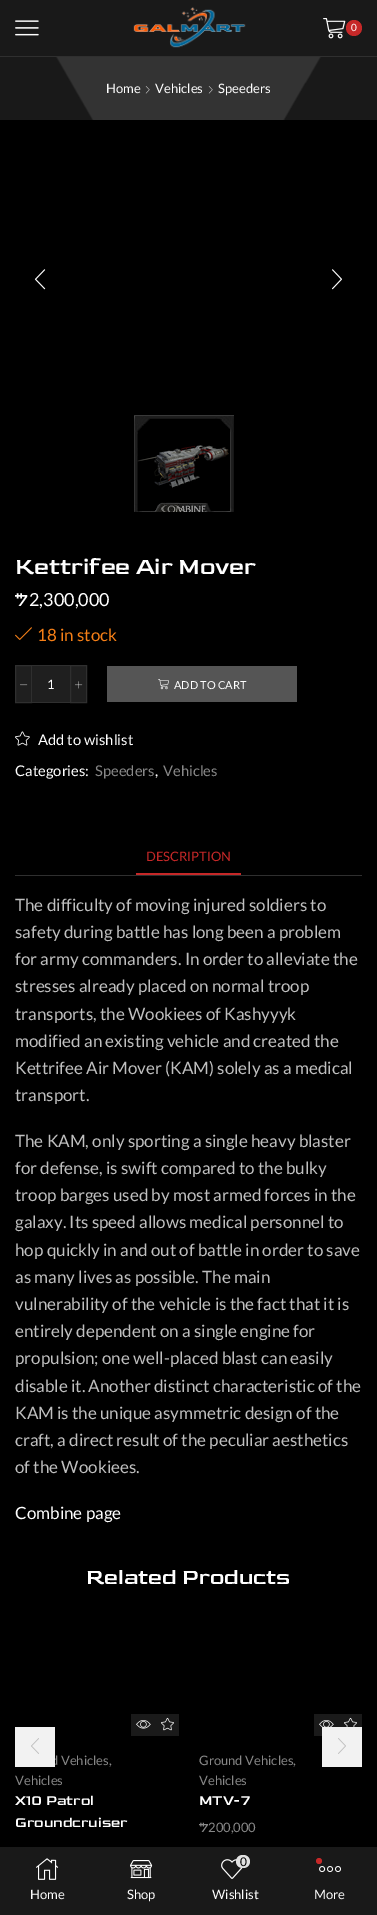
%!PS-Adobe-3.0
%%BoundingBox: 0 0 377 1915
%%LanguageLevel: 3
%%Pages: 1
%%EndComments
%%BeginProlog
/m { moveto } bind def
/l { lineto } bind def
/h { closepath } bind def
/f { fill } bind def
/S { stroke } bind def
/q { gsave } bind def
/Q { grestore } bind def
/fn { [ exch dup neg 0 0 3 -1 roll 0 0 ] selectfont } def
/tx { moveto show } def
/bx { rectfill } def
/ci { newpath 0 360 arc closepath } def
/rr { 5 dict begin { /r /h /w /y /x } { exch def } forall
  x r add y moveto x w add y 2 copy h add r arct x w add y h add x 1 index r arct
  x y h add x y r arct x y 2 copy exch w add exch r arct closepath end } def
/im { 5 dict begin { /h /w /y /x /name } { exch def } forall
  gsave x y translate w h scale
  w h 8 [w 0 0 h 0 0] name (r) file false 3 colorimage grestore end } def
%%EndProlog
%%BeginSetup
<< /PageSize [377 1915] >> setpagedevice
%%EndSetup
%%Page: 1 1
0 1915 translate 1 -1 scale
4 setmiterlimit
0 setgray
0 0 377 1915 bx
0.098 setgray
0 0 377 56 bx
0.184 setgray
0 56 377 1 bx
(image0.raw) 15 20 24 16 im
(image1.raw) 133 7 113 41 im
(image2.raw) 323 18 23 21 im
0.776 0.157 0.157 setrgbcolor
354 28 8 ci f
/Lato-Regular 10 fn
1 setgray
(0) 351 31 tx
0.2 setgray
55 57 267 63 bx
(image3.raw) 0 57 377 63 im
/Lato-Regular 13 fn
1 setgray
(Home) 106 93 tx
(image4.raw) 145 86 5 8 im
(Vehicles) 155 93 tx
(image4.raw) 208 86 5 8 im
(Speeders) 218 93 tx
(image5.raw) 34 269 12 21 im
(image6.raw) 332 269 10 21 im
(image7.raw) 134 415 100 97 im
/Goldman-Regular 24 fn
(Kettrifee Air Mover) 15 574 tx
/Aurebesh-Regular 18 fn
($) 15 606 tx
/Lato-Regular 18 fn
(2,300,000) 29 606 tx
(image8.raw) 15 627 17 13 im
/Lato-Regular 17 fn
0.961 0.498 0.09 setrgbcolor
(18 in stock) 37 641 tx
0.122 setgray
15.5 665.5 m 31.5 665.5 l 31.5 702.5 l 15.5 702.5 l h q f Q
0.184 setgray
S
(image9.raw) 20 684 8 2 im
0.122 setgray
32 666 38 36 bx
0.184 setgray
32 665 38 1 bx
32 702 38 1 bx
/Lato-Regular 13 fn
1 setgray
(1) 47 689 tx
0.122 setgray
70.5 665.5 m 86.5 665.5 l 86.5 702.5 l 70.5 702.5 l h q f Q
0.184 setgray
S
(image10.raw) 75 681 8 8 im
0.333 setgray
107 666 190 36 bx
(image11.raw) 158 679 11 11 im
/Lato-Regular 11 fn
1 setgray
(ADD TO CART) 174 689 tx
(image12.raw) 15 731 15 15 im
/Lato-Regular 14.75 fn
(Add to wishlist) 38 745 tx
(Categories:) 15 776 tx
0.533 setgray
(Speeders) 95 776 tx
1 setgray
(,) 155 776 tx
0.533 setgray
(Vehicles) 163 776 tx
0.184 setgray
15 875 347 1 bx
/Lato-Regular 13 fn
0.776 0.157 0.157 setrgbcolor
(DESCRIPTION) 146 861 tx
136 873 105 2 bx
/Lato-Regular 17 fn
0.749 setgray
(The difficulty of moving injured soldiers to) 15 911 tx
(safety during battle has long been a problem) 15 938 tx
(for army commanders. In order to alleviate the) 15 965 tx
(stresses already placed on normal troop) 15 992 tx
(transports, the Wookiees of Kashyyyk) 15 1020 tx
(modified an existing vehicle and created the) 15 1047 tx
(Kettrifee Air Mover \(KAM\) solely as a medical) 15 1074 tx
(transport.) 15 1101 tx
(The KAM, only sporting a single heavy blaster) 15 1147 tx
(for defense, is swift compared to the bulky) 15 1174 tx
(troop barges used by most armed forces in the) 15 1201 tx
(galaxy. Its speed allows medical personnel to) 15 1228 tx
(hop quickly in and out of battle in order to save) 15 1256 tx
(as many lives as possible. The main) 15 1283 tx
(vulnerability of the vehicle is the fact that it is) 15 1310 tx
(entirely dependent on a single engine for) 15 1337 tx
(propulsion; one well-placed blast can easily) 15 1364 tx
(disable it. Another distinct characteristic of the) 15 1392 tx
(KAM is the unique asymmetric design of the) 15 1419 tx
(craft, a direct result of the peculiar aesthetics) 15 1446 tx
(of the Wookiees.) 15 1473 tx
1 setgray
(Combine page) 15 1519 tx
/Goldman-Regular 22.25 fn
(Related Products) 86 1584 tx
/Lato-Regular 13 fn
0.533 setgray
(d Vehicles,) 51 1765 tx
0.949 setgray
15 1727 40 40 bx
(image13.raw) 31 1738 8 16 im
0.102 setgray
314 1714 48 22 bx
0.949 setgray
322 1727 40 40 bx
(image14.raw) 338 1738 8 16 im
0.102 setgray
131 1714 48 22 bx
(image15.raw) 136 1720 15 9 im
(image16.raw) 161 1717 13 14 im
0.533 setgray
(Vehicles) 15 1785 tx
/Goldman-Regular 14.75 fn
1 setgray
(X10 Patrol) 15 1805 tx
(Groundcruiser) 15 1827 tx
(image17.raw) 319 1720 15 7 im
(image18.raw) 344 1717 13 10 im
/Lato-Regular 13 fn
0.533 setgray
(Ground Vehicles,) 199 1765 tx
(Vehicles) 199 1785 tx
/Goldman-Regular 14.75 fn
1 setgray
(MTV-7) 199 1805 tx
/Aurebesh-Regular 13 fn
0.533 setgray
($) 199 1832 tx
/Lato-Regular 13 fn
(200,000) 208 1832 tx
0.098 setgray
0 1847 377 68 bx
(image19.raw) 36 1858 23 22 im
1 setgray
(Home) 30 1899 tx
(image20.raw) 130 1860 23 19 im
(Shop) 127 1899 tx
(image21.raw) 221 1859 22 20 im
0.882 setgray
236 1855 14 13 6.5 rr f
/Lato-Regular 12 fn
0 setgray
(0) 240 1866 tx
/Lato-Regular 13 fn
1 setgray
(Wishlist) 212 1899 tx
0.776 0.157 0.157 setrgbcolor
319 1861 3 ci f
(image22.raw) 319 1866 22 7 im
1 setgray
(More) 314 1899 tx
showpage
%%EOF
